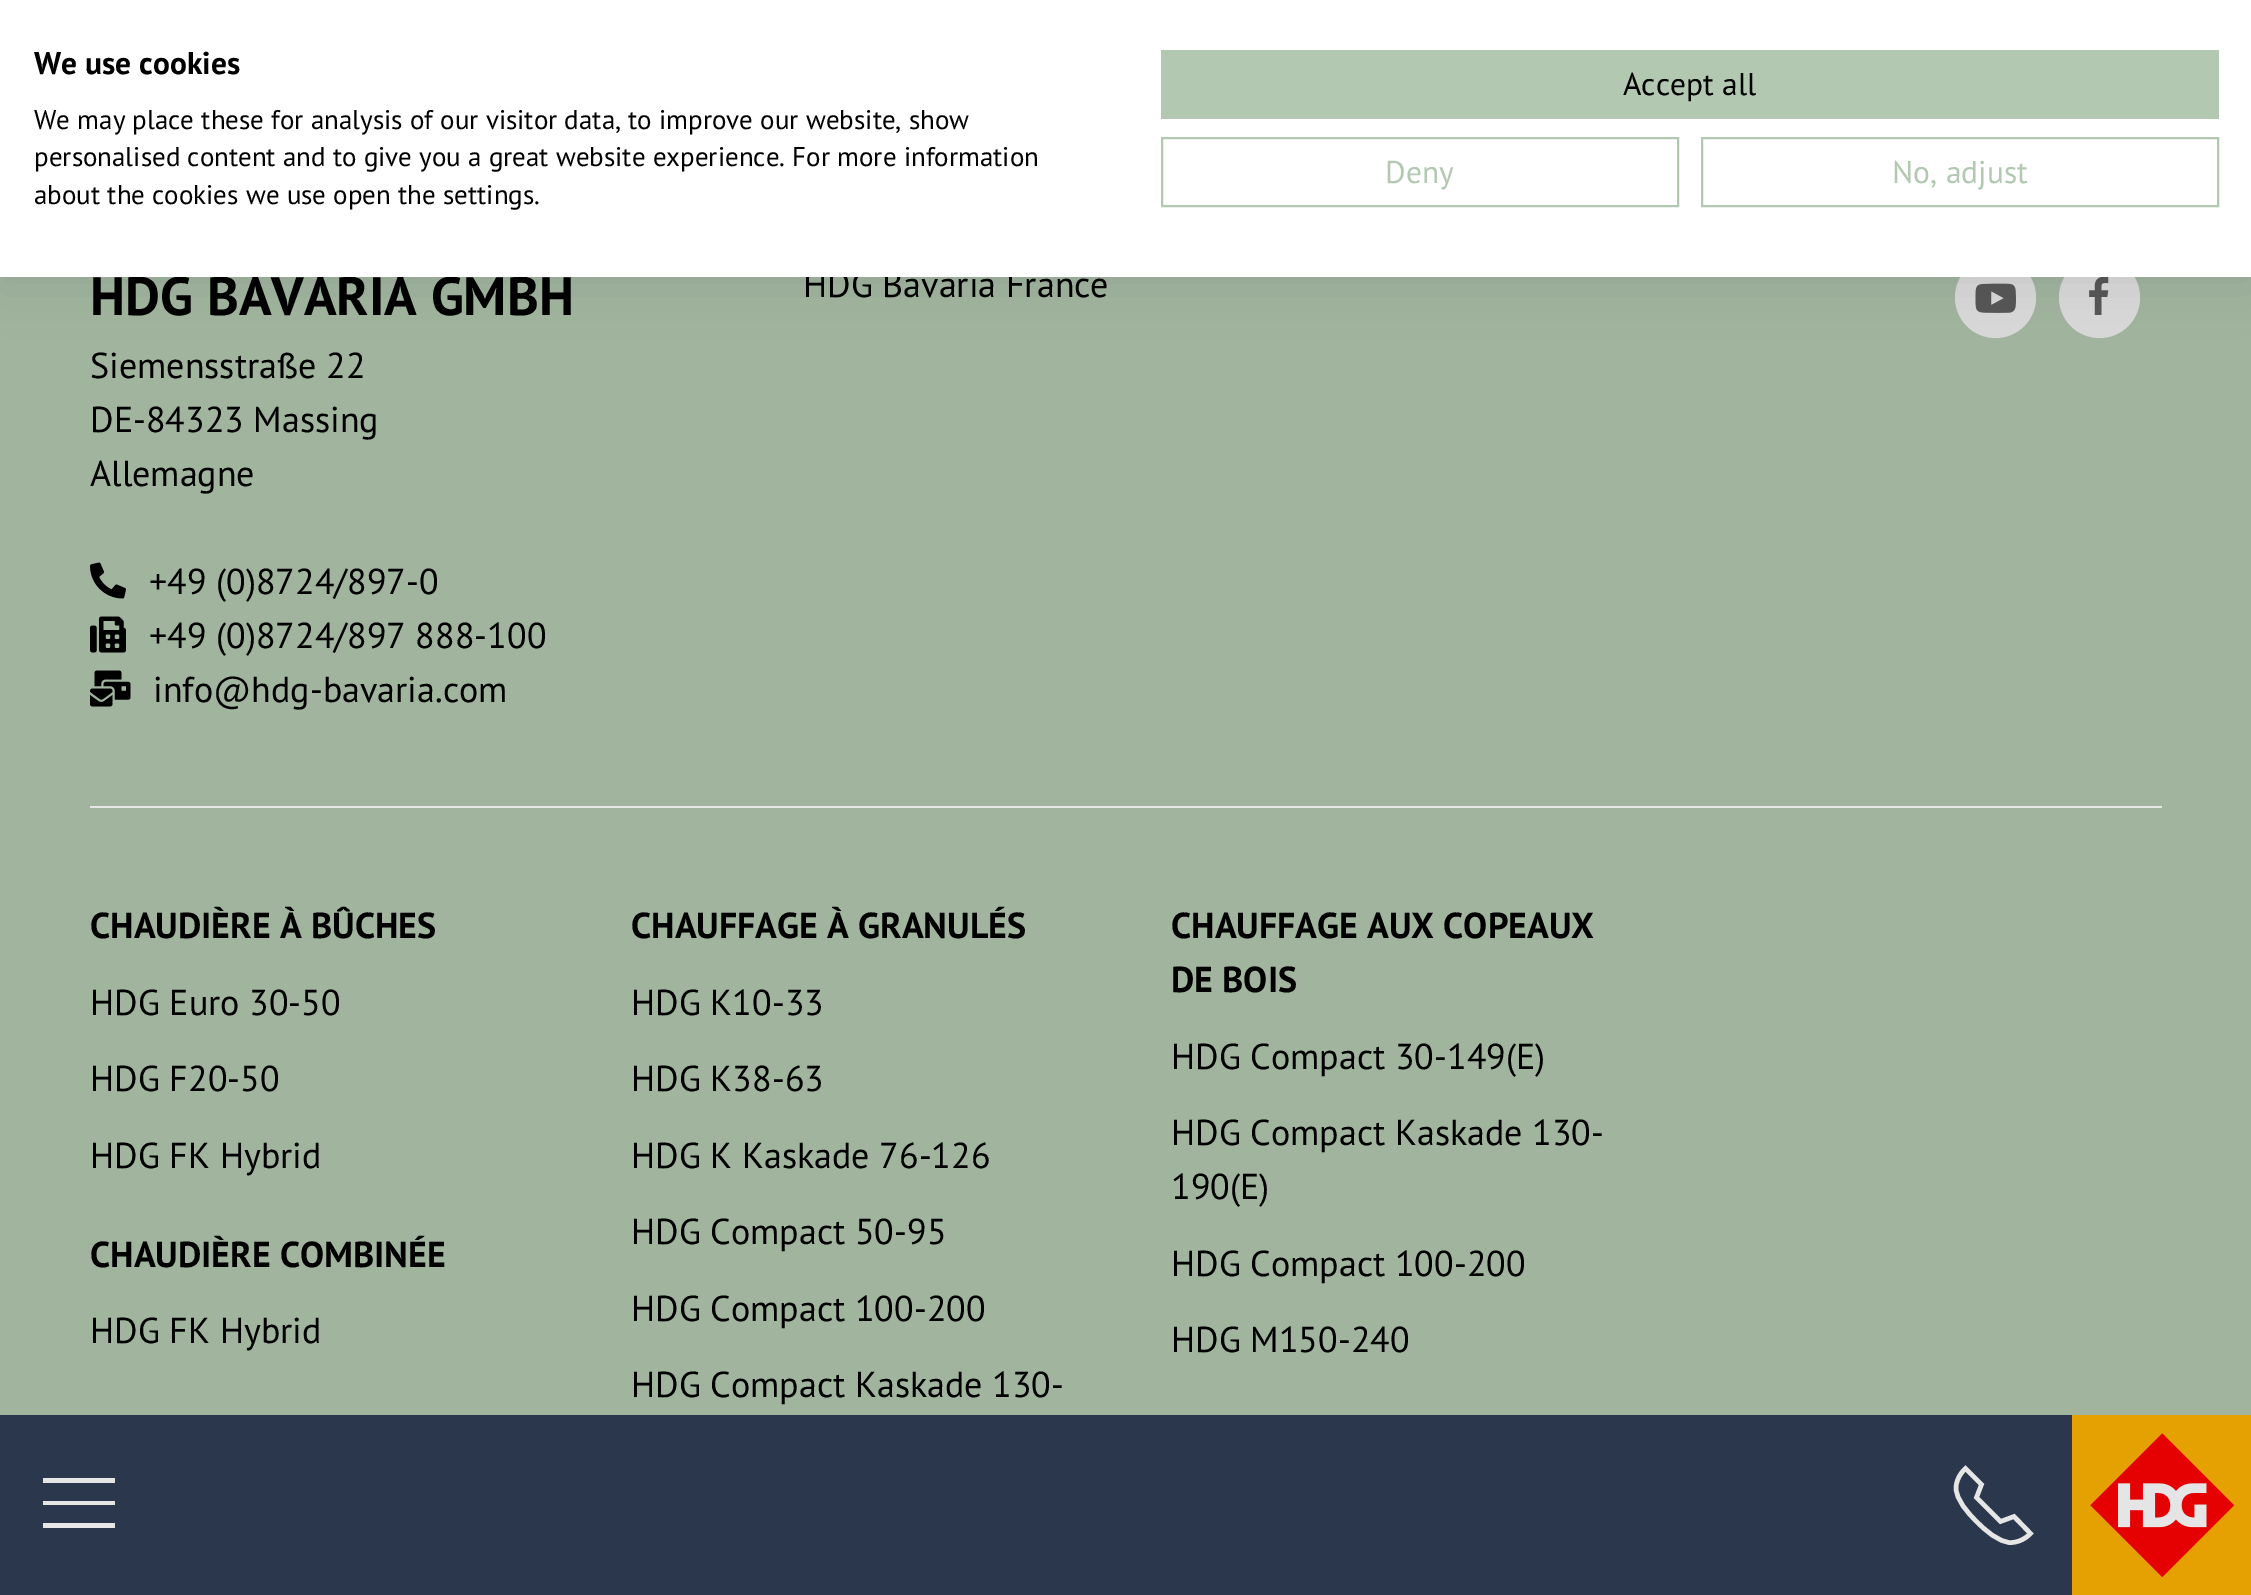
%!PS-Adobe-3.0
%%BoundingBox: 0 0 2251 1595
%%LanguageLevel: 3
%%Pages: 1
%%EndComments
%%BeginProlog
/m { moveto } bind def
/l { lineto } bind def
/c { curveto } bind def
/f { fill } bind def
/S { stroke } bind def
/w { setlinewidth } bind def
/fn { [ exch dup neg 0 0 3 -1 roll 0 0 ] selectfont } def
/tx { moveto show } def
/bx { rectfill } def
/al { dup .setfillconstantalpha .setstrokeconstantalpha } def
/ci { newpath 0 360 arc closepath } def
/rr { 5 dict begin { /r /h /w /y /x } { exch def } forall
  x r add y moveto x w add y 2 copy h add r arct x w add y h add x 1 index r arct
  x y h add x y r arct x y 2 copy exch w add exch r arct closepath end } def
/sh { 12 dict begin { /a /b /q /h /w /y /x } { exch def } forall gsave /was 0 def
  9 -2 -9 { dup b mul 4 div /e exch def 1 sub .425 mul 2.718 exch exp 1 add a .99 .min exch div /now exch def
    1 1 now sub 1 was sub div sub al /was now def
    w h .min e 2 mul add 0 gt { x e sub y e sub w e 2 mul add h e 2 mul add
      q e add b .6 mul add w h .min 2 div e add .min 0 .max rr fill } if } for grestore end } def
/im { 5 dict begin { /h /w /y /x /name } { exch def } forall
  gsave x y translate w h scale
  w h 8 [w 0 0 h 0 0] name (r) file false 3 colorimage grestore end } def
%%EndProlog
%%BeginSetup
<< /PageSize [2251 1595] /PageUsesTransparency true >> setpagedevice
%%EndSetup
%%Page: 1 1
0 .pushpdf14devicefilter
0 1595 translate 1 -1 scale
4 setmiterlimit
0.627 0.706 0.62 setrgbcolor
0 0 2251 1595 bx
0.847 setgray
1995.5 297.5 40.5 ci f
(image3.raw) 1975 283 41 30 im
2099.5 297.5 40.5 ci f
(image4.raw) 2089 277 20 38 im
0 setgray
0 0 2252 277 0 27 0.1 sh
/PTSans-Bold 54 fn
(HDG BAVARIA GMBH) 90 315 tx
/PTSans-Regular 36 fn
(HDG Bavaria France) 803 297 tx
1 setgray
0 0 2251 277 bx
/PTSans-Bold 31.5 fn
0 setgray
(We use cookies) 34 74 tx
/PTSans-Regular 27 fn
(We may place these for analysis of our visitor data, to improve our website, show) 34 129 tx
(personalised content and to give you a great website experience. For more information) 34 166 tx
(about the cookies we use open the settings.) 34 204 tx
0.698 0.784 0.69 setrgbcolor
1161 50 1058 69 bx
/PTSans-Regular 31.5 fn
0 setgray
(Accept all) 1623 95 tx
0.698 0.784 0.69 setrgbcolor
2 w
1162 138 516 68 rectstroke
(Deny) 1385 183 tx
1702 138 516 68 rectstroke
(No, adjust) 1892 183 tx
/PTSans-Regular 36 fn
0 setgray
(Siemensstraße 22) 90 378 tx
(DE-84323 Massing) 90 432 tx
(Allemagne) 90 486 tx
(image0.raw) 90 562 36 37 im
(+49 \(0\)8724/897-0) 149 594 tx
(image1.raw) 90 616 36 37 im
(+49 \(0\)8724/897 888-100) 149 648 tx
(image2.raw) 90 670 41 37 im
(info@hdg-bavaria.com) 153 702 tx
0.902 setgray
90 806 2072 2 bx
/PTSans-Bold 36 fn
0 setgray
(CHAUDIÈRE À BÛCHES) 90 938 tx
/PTSans-Regular 36 fn
(HDG Euro 30-50) 90 1015 tx
(HDG F20-50) 90 1091 tx
(HDG FK Hybrid) 90 1168 tx
/PTSans-Bold 36 fn
(CHAUDIÈRE COMBINÉE) 90 1267 tx
/PTSans-Regular 36 fn
(HDG FK Hybrid) 90 1343 tx
/PTSans-Bold 36 fn
(CHAUFFAGE À GRANULÉS) 631 938 tx
/PTSans-Regular 36 fn
(HDG K10-33) 631 1015 tx
(HDG K38-63) 631 1091 tx
(HDG K Kaskade 76-126) 631 1168 tx
(HDG Compact 50-95) 631 1244 tx
(HDG Compact 100-200) 631 1321 tx
(HDG Compact Kaskade 130-) 631 1397 tx
/PTSans-Bold 36 fn
(CHAUFFAGE AUX COPEAUX) 1171 938 tx
(DE BOIS) 1171 992 tx
/PTSans-Regular 36 fn
(HDG Compact 30-149\(E\)) 1171 1069 tx
(HDG Compact Kaskade 130-) 1171 1145 tx
(190\(E\)) 1171 1199 tx
(HDG Compact 100-200) 1171 1276 tx
(HDG M150-240) 1171 1352 tx
0.169 0.216 0.302 setrgbcolor
0 1415 2072 180 bx
0.902 setgray
43 1478 72 5 bx
43 1501 72 4 bx
43 1523 72 5 bx
4.5 w
1976.5 1521.5 m 1985 1530 1998.5 1542.5 2011 1542.5 c 2022.5 1542.5 2030.5 1533.5 2030.5 1533.5 c 2014 1516.5 l 2000.5 1521.5 l 1976.5 1497.5 l 1981.5 1484.5 l 1965.5 1468.5 l 1965.5 1468.5 1956.5 1476 1956 1487.5 c 1956 1500 1968 1513 1976.5 1521.5 c S
(image5.raw) 2072 1415 179 180 im
.poppdf14devicefilter showpage
%%EOF
